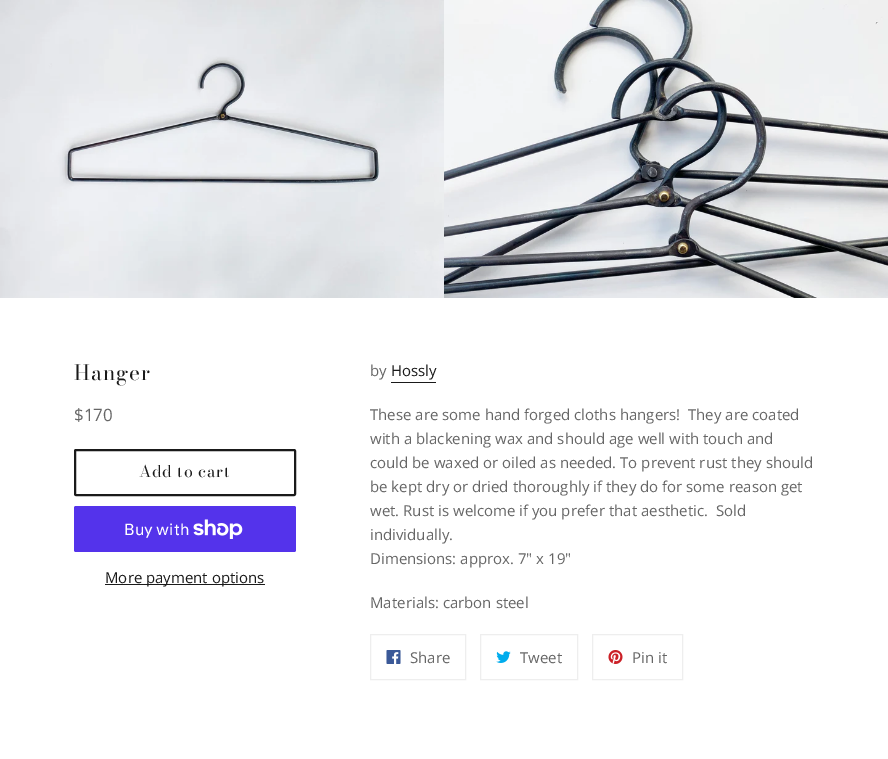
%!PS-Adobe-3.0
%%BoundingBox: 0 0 888 759
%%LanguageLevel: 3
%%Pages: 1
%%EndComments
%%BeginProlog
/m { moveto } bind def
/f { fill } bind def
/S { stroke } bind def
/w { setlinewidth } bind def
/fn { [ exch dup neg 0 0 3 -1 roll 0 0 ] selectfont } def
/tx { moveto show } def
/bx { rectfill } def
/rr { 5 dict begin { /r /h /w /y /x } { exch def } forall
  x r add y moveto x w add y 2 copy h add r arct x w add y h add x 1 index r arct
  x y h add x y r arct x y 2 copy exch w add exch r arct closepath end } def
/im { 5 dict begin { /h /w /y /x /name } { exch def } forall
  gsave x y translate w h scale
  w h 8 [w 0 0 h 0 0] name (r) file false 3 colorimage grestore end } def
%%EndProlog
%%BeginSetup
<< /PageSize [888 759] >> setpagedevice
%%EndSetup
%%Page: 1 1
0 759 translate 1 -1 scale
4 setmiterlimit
1 setgray
0 0 888 759 bx
(image0.raw) 0 0 444 298 im
(image1.raw) 444 0 444 298 im
/BodoniModa-Regular 21 fn
0.102 setgray
74 380 m 1 0 (Hanger) ashow
/OpenSans-Regular 17 fn
0.4 setgray
($170) 74 421 tx
0.102 setgray
2 w
75 450 220 45 1 rr S
/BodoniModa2-Regular 16 fn
139 477 m 0.75 0 (Add to cart) ashow
0.329 0.2 0.922 setrgbcolor
74 506 222 46 2 rr f
/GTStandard-Regular 16 fn
1 setgray
(Buy with) 124 535 tx
(image2.raw) 193 519 50 20 im
0.102 setgray
105 584 160 1 bx
/OpenSans-Regular 15 fn
(More payment options) 105 583 tx
0.4 setgray
(by) 370 376 tx
0.102 setgray
(Hossly) 391 376 tx
391 382 45 1 bx
0.4 setgray
(These are some hand forged cloths hangers!  They are coated) 370 420 tx
(with a blackening wax and should age well with touch and) 370 444 tx
(could be waxed or oiled as needed. To prevent rust they should) 370 468 tx
(be kept dry or dried thoroughly if they do for some reason get) 370 492 tx
(wet. Rust is welcome if you prefer that aesthetic.  Sold) 370 516 tx
(individually.) 370 540 tx
(Dimensions: approx. 7" x 19") 370 564 tx
(Materials: carbon steel) 370 608 tx
0.933 setgray
1 w
370.5 634.5 95 45 rectstroke
(image3.raw) 386 650 15 14 im
0.4 setgray
(Share) 410 663 tx
0.933 setgray
480.5 634.5 97 45 rectstroke
(image4.raw) 496 651 15 12 im
0.4 setgray
(Tweet) 520 663 tx
0.933 setgray
592.5 634.5 90 45 rectstroke
(image5.raw) 608 650 15 14 im
0.4 setgray
(Pin it) 632 663 tx
showpage
%%EOF
